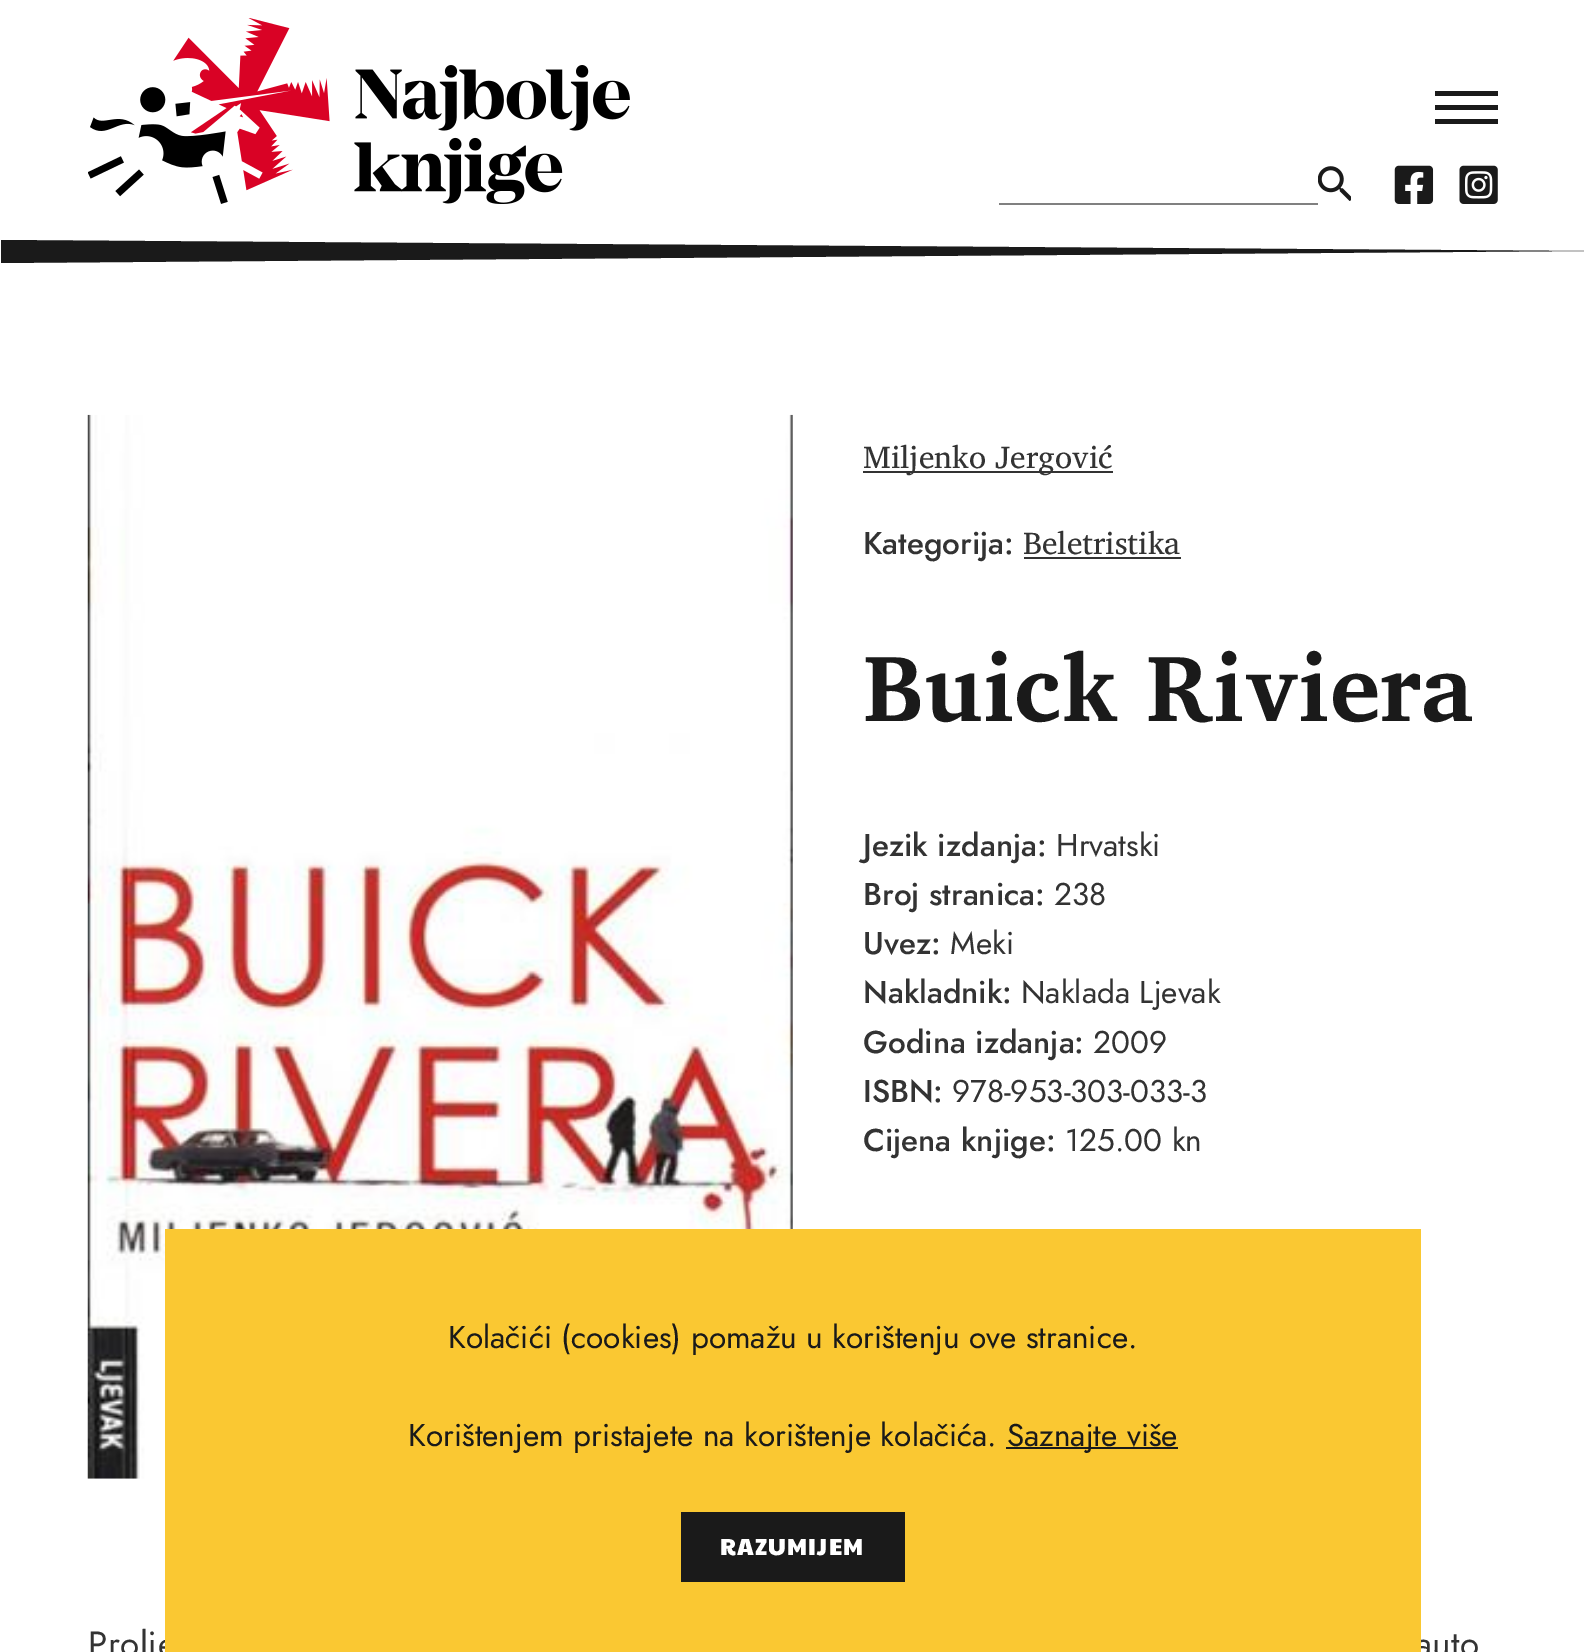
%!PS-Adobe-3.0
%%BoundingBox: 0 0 1584 1652
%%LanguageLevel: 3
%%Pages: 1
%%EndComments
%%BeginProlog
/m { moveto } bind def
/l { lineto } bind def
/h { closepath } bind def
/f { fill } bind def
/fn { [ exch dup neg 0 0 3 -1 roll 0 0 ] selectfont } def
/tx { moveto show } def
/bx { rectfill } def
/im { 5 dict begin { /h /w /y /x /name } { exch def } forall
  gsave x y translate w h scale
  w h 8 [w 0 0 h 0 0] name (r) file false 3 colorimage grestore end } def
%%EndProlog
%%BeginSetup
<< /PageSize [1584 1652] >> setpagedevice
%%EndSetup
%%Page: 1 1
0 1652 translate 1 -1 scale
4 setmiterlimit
1 setgray
0 0 1584 1652 bx
(image0.raw) 88 18 542 186 im
0.102 setgray
1435 91 63 5 bx
1435 105 63 5 bx
1435 119 63 5 bx
(image1.raw) 1318 166 33 35 im
0.502 setgray
999 203 319 2 bx
(image2.raw) 1394 165 40 39 im
(image3.raw) 1459 165 39 39 im
0.102 setgray
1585 251 m 1 263 l 1 240 l h f
(image4.raw) 87 414 706 1065 im
0.2 setgray
863 471 250 2 bx
/CharisSIL-Regular 31.5 fn
(Miljenko Jergović) 863 468 tx
/Jost-Medium 31.5 fn
(Kategorija:) 863 554 tx
/CharisSIL-Regular 31.5 fn
(Beletristika) 1023 554 tx
1024 557 157 2 bx
/CharisSIL-Bold 95 fn
0.102 setgray
(Buick Riviera) 863 721 tx
/Jost-Medium 31.5 fn
0.2 setgray
(Jezik izdanja:) 863 856 tx
/Jost-Regular 31.5 fn
(Hrvatski) 1056 856 tx
/Jost-Medium 31.5 fn
(Broj stranica:) 863 905 tx
/Jost-Regular 31.5 fn
(238) 1054 905 tx
/Jost-Medium 31.5 fn
(Uvez:) 863 954 tx
/Jost-Regular 31.5 fn
(Meki) 950 954 tx
/Jost-Medium 31.5 fn
(Nakladnik:) 863 1003 tx
/Jost-Regular 31.5 fn
(Naklada Ljevak) 1021 1003 tx
/Jost-Medium 31.5 fn
(Godina izdanja:) 863 1053 tx
/Jost-Regular 31.5 fn
(2009) 1093 1053 tx
/Jost-Medium 31.5 fn
(ISBN:) 863 1102 tx
/Jost-Regular 31.5 fn
(978-953-303-033-3) 952 1102 tx
/Jost-Medium 31.5 fn
(Cijena knjige:) 863 1151 tx
/Jost-Regular 31.5 fn
(125.00 kn) 1065 1151 tx
/Jost-Regular 35 fn
88 1656 m 0.5 0 (Prolje) ashow
1415 1656 m 0.5 0 (auto) ashow
0.98 0.784 0.196 setrgbcolor
165 1229 1256 423 bx
/Jost-Regular 31.5 fn
0.102 setgray
(Kolačići \(cookies\) pomažu u korištenju ove stranice.) 448 1348 tx
(Korištenjem pristajete na korištenje kolačića.) 408 1446 tx
1006 1447 172 2 bx
(Saznajte više) 1007 1446 tx
681 1512 224 70 bx
/PaytoneOne-Regular 23.25 fn
1 setgray
720 1555 m 1.25 0 (RAZUMIJEM) ashow
showpage
%%EOF
